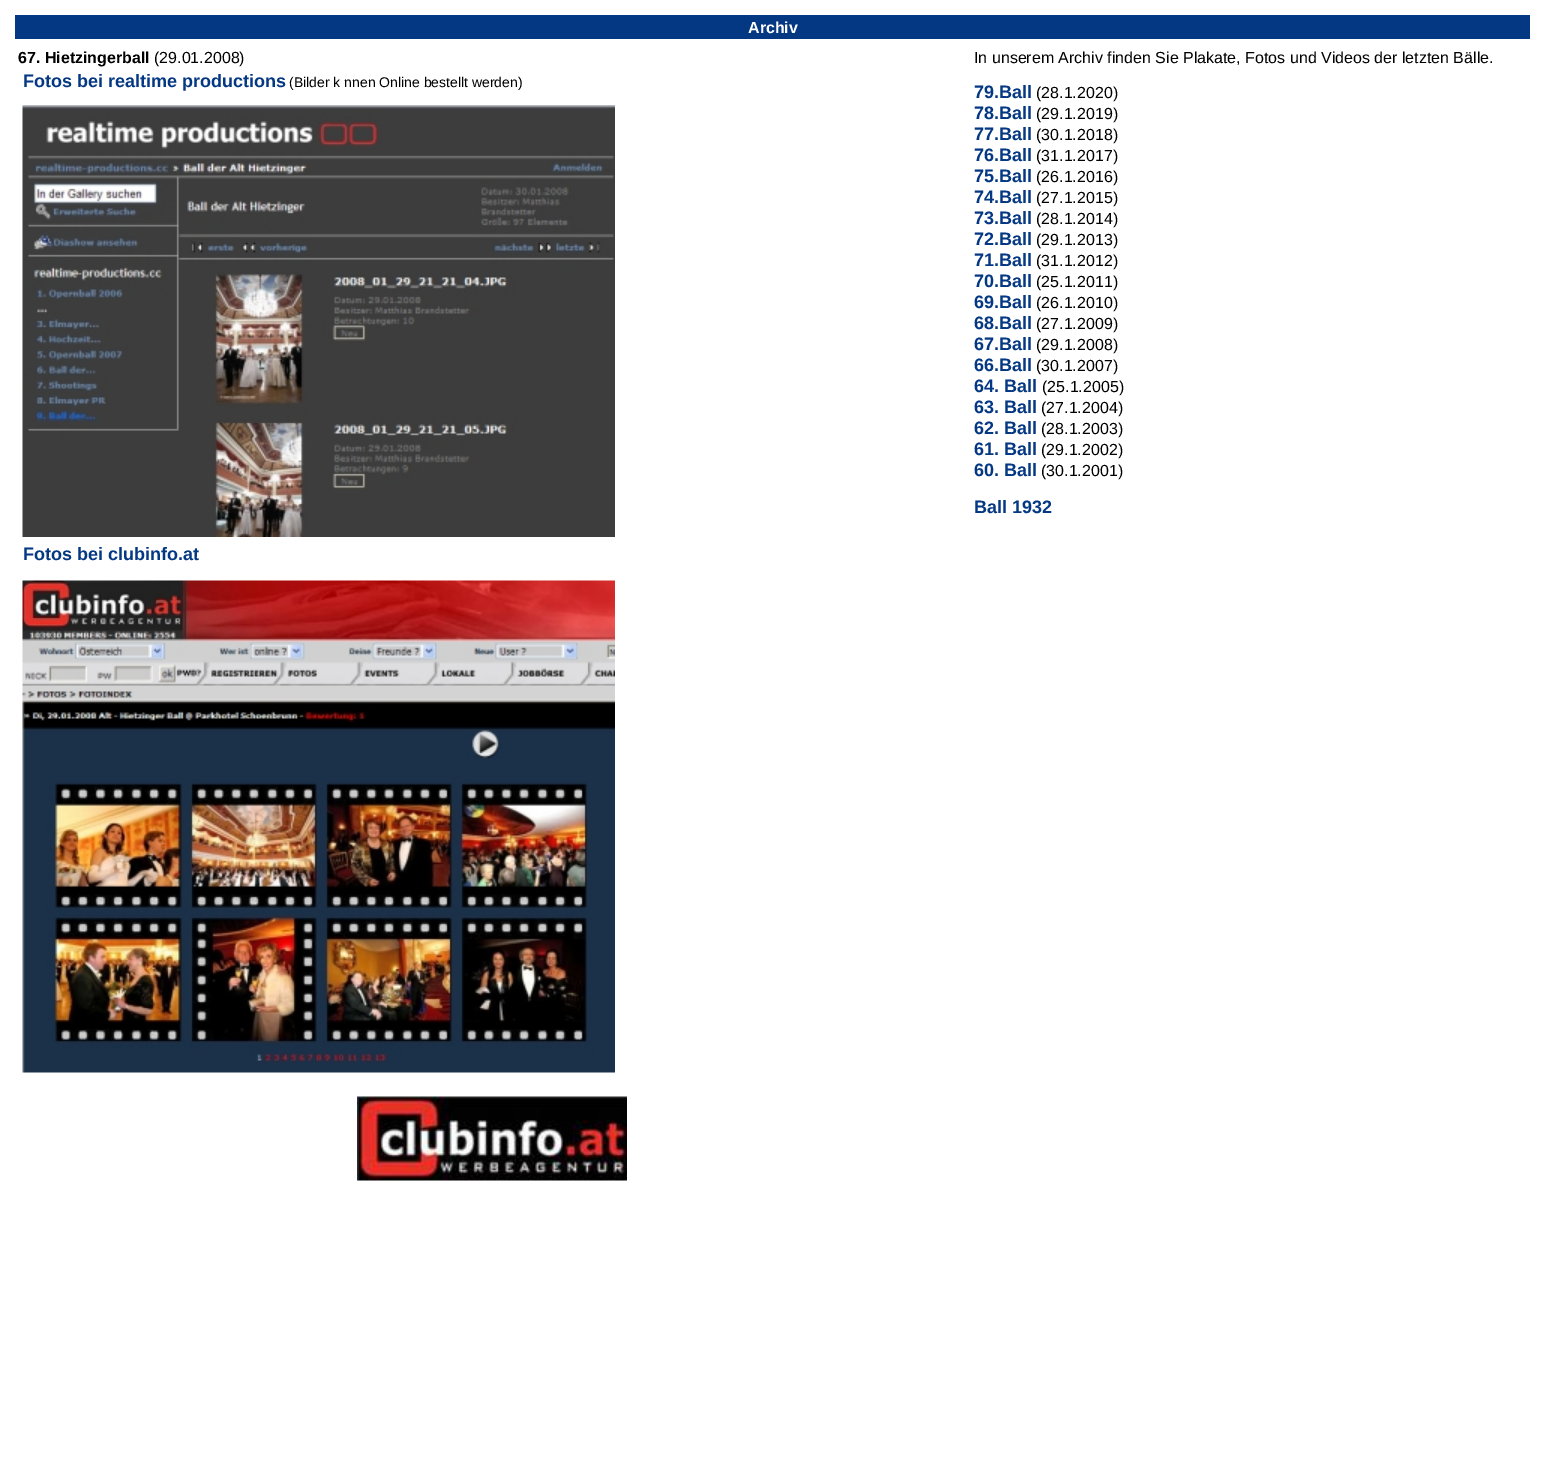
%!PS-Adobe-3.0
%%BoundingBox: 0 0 1545 1473
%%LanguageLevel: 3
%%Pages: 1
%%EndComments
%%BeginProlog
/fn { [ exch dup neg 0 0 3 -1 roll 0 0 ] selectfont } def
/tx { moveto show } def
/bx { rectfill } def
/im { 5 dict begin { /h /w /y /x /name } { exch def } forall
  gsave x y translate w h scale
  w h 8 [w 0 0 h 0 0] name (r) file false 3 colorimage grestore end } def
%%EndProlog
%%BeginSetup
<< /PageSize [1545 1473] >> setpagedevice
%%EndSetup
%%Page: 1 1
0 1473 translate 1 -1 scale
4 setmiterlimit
1 setgray
0 0 1545 1473 bx
0.016 0.22 0.514 setrgbcolor
15 15 1515 24 bx
/LiberationSans-Bold 16 fn
1 setgray
(Archiv) 748 33 tx
0 setgray
(67. Hietzingerball) 18 63 tx
/LiberationSans-Regular 16 fn
(\(29.01.2008\)) 154 63 tx
/LiberationSans-Bold 18 fn
0.016 0.22 0.514 setrgbcolor
(Fotos bei realtime productions) 23 87 tx
/LiberationSans-Regular 14 fn
0 setgray
(\(Bilder k nnen Online bestellt werden\)) 289 87 tx
(image0.raw) 22 105 593 432 im
/LiberationSans-Bold 18 fn
0.016 0.22 0.514 setrgbcolor
(Fotos bei clubinfo.at) 23 560 tx
(image1.raw) 22 580 593 493 im
(image2.raw) 357 1096 270 85 im
/LiberationSans-Regular 16 fn
0 setgray
(In unserem Archiv finden Sie Plakate, Fotos und Videos der letzten Bälle.) 974 63 tx
/LiberationSans-Bold 18 fn
0.016 0.22 0.514 setrgbcolor
(79.Ball) 974 98 tx
/LiberationSans-Regular 16 fn
0 setgray
(\(28.1.2020\)) 1036 98 tx
/LiberationSans-Bold 18 fn
0.016 0.22 0.514 setrgbcolor
(78.Ball) 974 119 tx
/LiberationSans-Regular 16 fn
0 setgray
(\(29.1.2019\)) 1036 119 tx
/LiberationSans-Bold 18 fn
0.016 0.22 0.514 setrgbcolor
(77.Ball) 974 140 tx
/LiberationSans-Regular 16 fn
0 setgray
(\(30.1.2018\)) 1036 140 tx
/LiberationSans-Bold 18 fn
0.016 0.22 0.514 setrgbcolor
(76.Ball) 974 161 tx
/LiberationSans-Regular 16 fn
0 setgray
(\(31.1.2017\)) 1036 161 tx
/LiberationSans-Bold 18 fn
0.016 0.22 0.514 setrgbcolor
(75.Ball) 974 182 tx
/LiberationSans-Regular 16 fn
0 setgray
(\(26.1.2016\)) 1036 182 tx
/LiberationSans-Bold 18 fn
0.016 0.22 0.514 setrgbcolor
(74.Ball) 974 203 tx
/LiberationSans-Regular 16 fn
0 setgray
(\(27.1.2015\)) 1036 203 tx
/LiberationSans-Bold 18 fn
0.016 0.22 0.514 setrgbcolor
(73.Ball) 974 224 tx
/LiberationSans-Regular 16 fn
0 setgray
(\(28.1.2014\)) 1036 224 tx
/LiberationSans-Bold 18 fn
0.016 0.22 0.514 setrgbcolor
(72.Ball) 974 245 tx
/LiberationSans-Regular 16 fn
0 setgray
(\(29.1.2013\)) 1036 245 tx
/LiberationSans-Bold 18 fn
0.016 0.22 0.514 setrgbcolor
(71.Ball) 974 266 tx
/LiberationSans-Regular 16 fn
0 setgray
(\(31.1.2012\)) 1036 266 tx
/LiberationSans-Bold 18 fn
0.016 0.22 0.514 setrgbcolor
(70.Ball) 974 287 tx
/LiberationSans-Regular 16 fn
0 setgray
(\(25.1.2011\)) 1036 287 tx
/LiberationSans-Bold 18 fn
0.016 0.22 0.514 setrgbcolor
(69.Ball) 974 308 tx
/LiberationSans-Regular 16 fn
0 setgray
(\(26.1.2010\)) 1036 308 tx
/LiberationSans-Bold 18 fn
0.016 0.22 0.514 setrgbcolor
(68.Ball) 974 329 tx
/LiberationSans-Regular 16 fn
0 setgray
(\(27.1.2009\)) 1036 329 tx
/LiberationSans-Bold 18 fn
0.016 0.22 0.514 setrgbcolor
(67.Ball) 974 350 tx
/LiberationSans-Regular 16 fn
0 setgray
(\(29.1.2008\)) 1036 350 tx
/LiberationSans-Bold 18 fn
0.016 0.22 0.514 setrgbcolor
(66.Ball) 974 371 tx
/LiberationSans-Regular 16 fn
0 setgray
(\(30.1.2007\)) 1036 371 tx
/LiberationSans-Bold 18 fn
0.016 0.22 0.514 setrgbcolor
(64. Ball) 974 392 tx
/LiberationSans-Regular 16 fn
0 setgray
(\(25.1.2005\)) 1042 392 tx
/LiberationSans-Bold 18 fn
0.016 0.22 0.514 setrgbcolor
(63. Ball) 974 413 tx
/LiberationSans-Regular 16 fn
0 setgray
(\(27.1.2004\)) 1041 413 tx
/LiberationSans-Bold 18 fn
0.016 0.22 0.514 setrgbcolor
(62. Ball) 974 434 tx
/LiberationSans-Regular 16 fn
0 setgray
(\(28.1.2003\)) 1041 434 tx
/LiberationSans-Bold 18 fn
0.016 0.22 0.514 setrgbcolor
(61. Ball) 974 455 tx
/LiberationSans-Regular 16 fn
0 setgray
(\(29.1.2002\)) 1041 455 tx
/LiberationSans-Bold 18 fn
0.016 0.22 0.514 setrgbcolor
(60. Ball) 974 476 tx
/LiberationSans-Regular 16 fn
0 setgray
(\(30.1.2001\)) 1041 476 tx
/LiberationSans-Bold 18 fn
0.016 0.22 0.514 setrgbcolor
(Ball 1932) 974 513 tx
showpage
%%EOF
